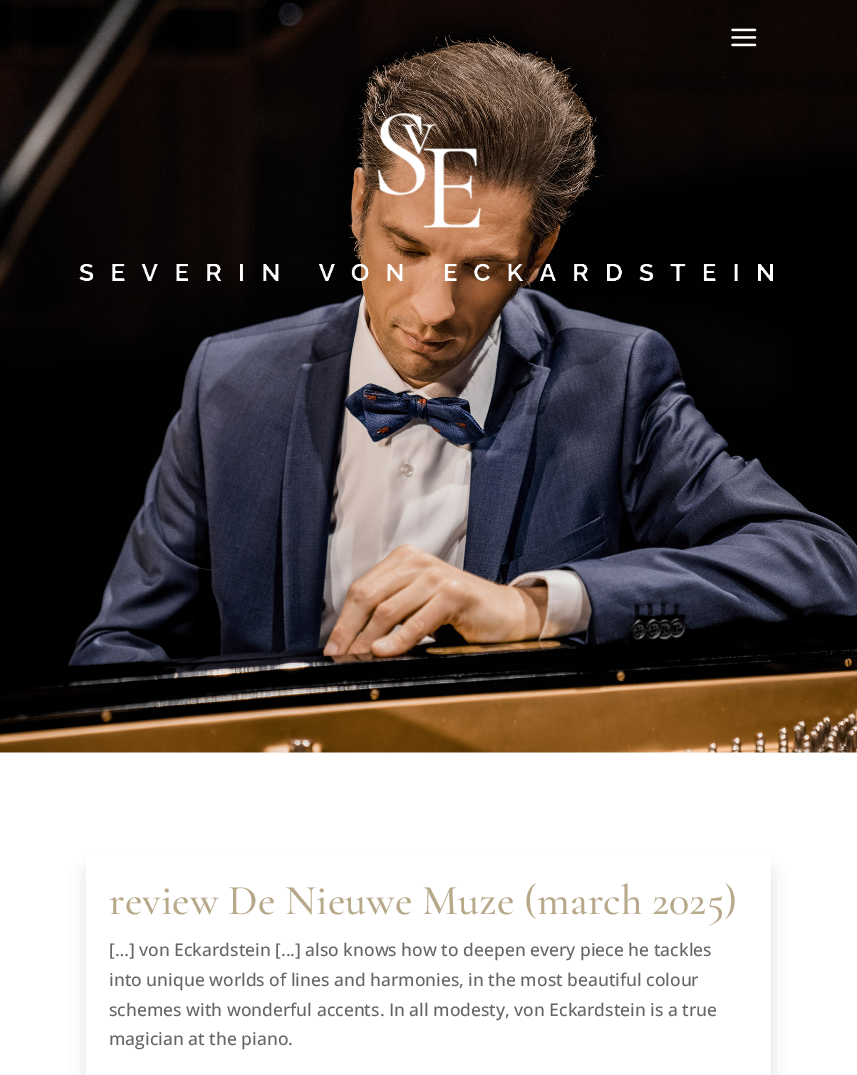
%!PS-Adobe-3.0
%%BoundingBox: 0 0 857 1075
%%LanguageLevel: 3
%%Pages: 1
%%EndComments
%%BeginProlog
/fn { [ exch dup neg 0 0 3 -1 roll 0 0 ] selectfont } def
/tx { moveto show } def
/bx { rectfill } def
/al { dup .setfillconstantalpha .setstrokeconstantalpha } def
/rr { 5 dict begin { /r /h /w /y /x } { exch def } forall
  x r add y moveto x w add y 2 copy h add r arct x w add y h add x 1 index r arct
  x y h add x y r arct x y 2 copy exch w add exch r arct closepath end } def
/sh { 12 dict begin { /a /b /q /h /w /y /x } { exch def } forall gsave /was 0 def
  9 -2 -9 { dup b mul 4 div /e exch def 1 sub .425 mul 2.718 exch exp 1 add a .99 .min exch div /now exch def
    1 1 now sub 1 was sub div sub al /was now def
    w h .min e 2 mul add 0 gt { x e sub y e sub w e 2 mul add h e 2 mul add
      q e add b .6 mul add w h .min 2 div e add .min 0 .max rr fill } if } for grestore end } def
/im { 5 dict begin { /h /w /y /x /name } { exch def } forall
  gsave x y translate w h scale
  w h 8 [w 0 0 h 0 0] name (r) file false 3 colorimage grestore end } def
%%EndProlog
%%BeginSetup
<< /PageSize [857 1075] /PageUsesTransparency true >> setpagedevice
%%EndSetup
%%Page: 1 1
0 .pushpdf14devicefilter
0 1075 translate 1 -1 scale
4 setmiterlimit
1 setgray
0 0 857 1075 bx
(image1.raw) 0 0 857 753 im
(image0.raw) 731 28 26 19 im
(image2.raw) 79 113 694 168 im
0 setgray
94 875 670 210 0 11 0.3 sh
1 setgray
86 855 685 220 bx
/CormorantGaramond-Medium 42.5 fn
0.718 0.659 0.537 setrgbcolor
(review De Nieuwe Muze \(march 2025\)) 109 914 tx
/OpenSans-Medium 17.5 fn
0.4 setgray
([…] von Eckardstein [...] also knows how to deepen every piece he tackles) 109 956 tx
(into unique worlds of lines and harmonies, in the most beautiful colour) 109 986 tx
(schemes with wonderful accents. In all modesty, von Eckardstein is a true) 109 1016 tx
(magician at the piano.) 109 1045 tx
.poppdf14devicefilter showpage
%%EOF
